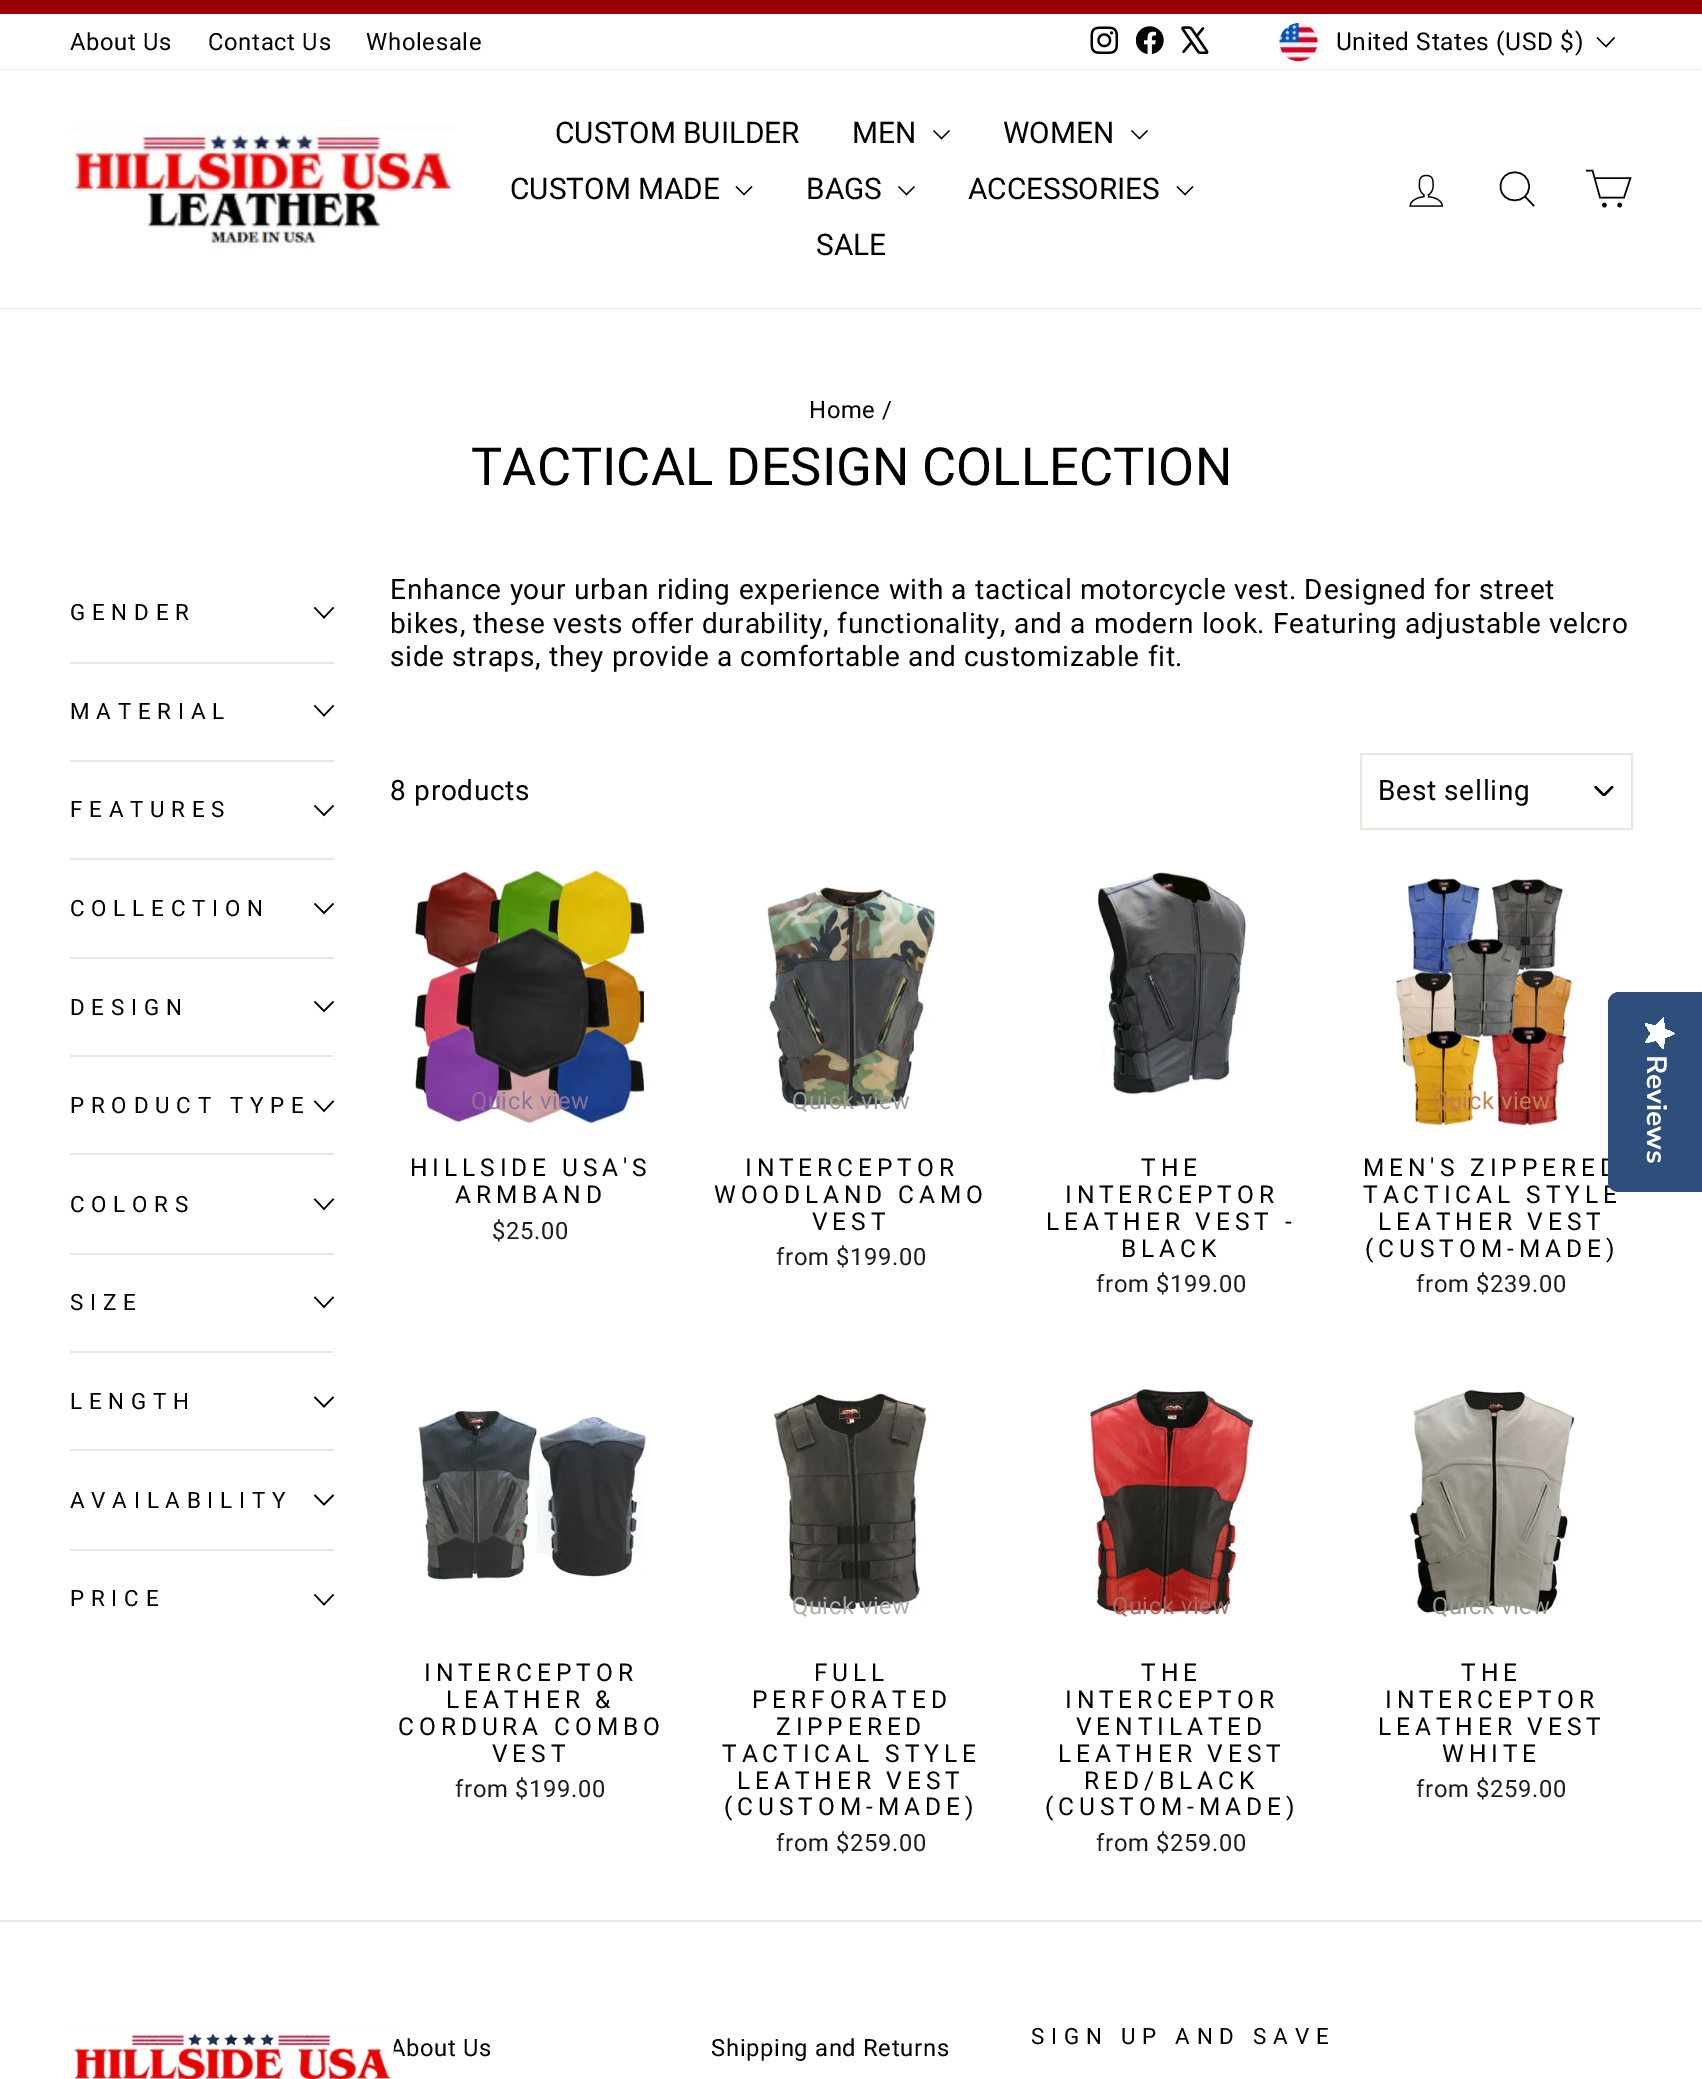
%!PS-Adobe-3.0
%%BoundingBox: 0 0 1702 2079
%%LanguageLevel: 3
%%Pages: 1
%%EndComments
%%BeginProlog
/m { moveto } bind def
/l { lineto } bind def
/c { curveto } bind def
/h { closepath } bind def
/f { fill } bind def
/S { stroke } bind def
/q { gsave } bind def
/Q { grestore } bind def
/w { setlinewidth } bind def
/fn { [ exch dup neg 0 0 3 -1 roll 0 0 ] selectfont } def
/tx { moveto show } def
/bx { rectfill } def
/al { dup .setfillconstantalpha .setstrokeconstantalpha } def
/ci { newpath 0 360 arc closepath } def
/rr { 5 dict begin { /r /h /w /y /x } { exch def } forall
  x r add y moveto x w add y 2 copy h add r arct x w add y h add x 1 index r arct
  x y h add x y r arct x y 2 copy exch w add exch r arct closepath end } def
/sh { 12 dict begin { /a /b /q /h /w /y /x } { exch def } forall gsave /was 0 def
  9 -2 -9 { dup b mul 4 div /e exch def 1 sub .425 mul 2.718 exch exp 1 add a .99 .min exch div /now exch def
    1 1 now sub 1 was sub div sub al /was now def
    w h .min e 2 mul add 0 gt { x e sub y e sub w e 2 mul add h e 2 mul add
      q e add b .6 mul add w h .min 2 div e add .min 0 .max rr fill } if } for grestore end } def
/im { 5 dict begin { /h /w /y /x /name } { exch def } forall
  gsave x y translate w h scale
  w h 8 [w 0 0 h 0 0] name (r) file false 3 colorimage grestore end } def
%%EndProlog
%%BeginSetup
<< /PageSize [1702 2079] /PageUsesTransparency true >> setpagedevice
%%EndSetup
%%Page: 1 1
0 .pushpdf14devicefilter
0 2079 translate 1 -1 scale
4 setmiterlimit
1 setgray
0 0 1702 2079 bx
0.6 0 0 setrgbcolor
0 0 1702 14 bx
/Roboto-Regular 23.75 fn
0 setgray
70 50 m 0.7 0 (About Us) ashow
208 50 m 0.7 0 (Contact Us) ashow
366 50 m 0.7 0 (Wholesale) ashow
(image0.raw) 1090 26 28 28 im
(image1.raw) 1136 26 28 28 im
(image2.raw) 1181 26 28 28 im
(image3.raw) 1279 23 39 39 im
/Roboto-Regular 24.5 fn
1336 50 m 0.6 0 (United States \(USD $\)) ashow
1.4 w
1597 37.5 m 1606 46.5 l 1614.5 37.5 l S
q
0 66 m 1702 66 l 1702 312 l 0 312 l h 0 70 m 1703 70 l 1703 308 l 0 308 l h eoclip newpath
0 70 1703 238 0 1 0.2 sh
Q
(image4.raw) 70 127 385 123 im
/Roboto-Regular 29.75 fn
(CUSTOM BUILDER) 555 143 tx
(MEN) 852 143 tx
1.2 w
933.5 130.5 m 941.5 138.5 l 949.5 130.5 l S
(WOMEN) 1003 143 tx
1131.5 130.5 m 1139.5 138.5 l 1147.5 130.5 l S
(CUSTOM MADE) 510 199 tx
736 186.5 m 744 194.5 l 752 186.5 l S
(BAGS) 806 199 tx
898.5 186.5 m 906.5 194.5 l 914.5 186.5 l S
(ACCESSORIES) 968 199 tx
1177 186.5 m 1185 194.5 l 1193 186.5 l S
(SALE) 816 255 tx
(image5.raw) 1409 174 35 33 im
1.5 w
1529 186.5 m 1529 205 1500.5 205 1500.5 186.5 c 1500.5 167.5 1529 167.5 1529 186.5 c h 1534 206 m 1525 196.5 l S
1594.5 178 m 1630.5 178 l 1624 197.5 l 1600 197.5 l 1592.5 170.5 l 1586 170.5 l S
1604.4 205.1 1.5 ci q f Q
S
1619.7 205.1 1.5 ci q f Q
S
/Roboto-Regular 23.75 fn
809 418 m 0.7 0 (Home /) ashow
/Roboto-Regular 52.5 fn
(TACTICAL DESIGN COLLECTION) 471 485 tx
/Roboto-Regular 22.4 fn
70 620 m 6.75 0 (GENDER) ashow
314.5 607.5 m 324 617.5 l 333.5 607.5 l S
0.91 0.91 0.882 setrgbcolor
70 662 264 2 bx
0 setgray
70 719 m 6.75 0 (MATERIAL) ashow
314.5 705.5 m 324 715.5 l 333.5 705.5 l S
0.91 0.91 0.882 setrgbcolor
70 760 264 2 bx
0 setgray
70 817 m 6.75 0 (FEATURES) ashow
314.5 805.5 m 324 815 l 333.5 805.5 l S
0.91 0.91 0.882 setrgbcolor
70 858 264 2 bx
0 setgray
70 916 m 6.75 0 (COLLECTION) ashow
314.5 903.5 m 324 913 l 333.5 903.5 l S
0.91 0.91 0.882 setrgbcolor
70 957 264 2 bx
0 setgray
70 1015 m 6.75 0 (DESIGN) ashow
314.5 1001.5 m 324 1011 l 333.5 1001.5 l S
0.91 0.91 0.882 setrgbcolor
70 1055 264 2 bx
0 setgray
70 1113 m 6.75 0 (PRODUCT TYPE) ashow
314.5 1101 m 324 1111 l 333.5 1101 l S
0.91 0.91 0.882 setrgbcolor
70 1153 264 2 bx
0 setgray
70 1212 m 6.75 0 (COLORS) ashow
314.5 1199 m 324 1209 l 333.5 1199 l S
0.91 0.91 0.882 setrgbcolor
70 1253 264 2 bx
0 setgray
70 1310 m 6.75 0 (SIZE) ashow
314.5 1297 m 324 1307 l 333.5 1297 l S
0.91 0.91 0.882 setrgbcolor
70 1351 264 2 bx
0 setgray
70 1409 m 6.75 0 (LENGTH) ashow
314.5 1397 m 324 1406.5 l 333.5 1397 l S
0.91 0.91 0.882 setrgbcolor
70 1449 264 2 bx
0 setgray
70 1508 m 6.75 0 (AVAILABILITY) ashow
314.5 1495 m 324 1504.5 l 333.5 1495 l S
0.91 0.91 0.882 setrgbcolor
70 1549 264 2 bx
0 setgray
70 1606 m 6.75 0 (PRICE) ashow
314.5 1594.5 m 324 1604.5 l 333.5 1594.5 l S
/Roboto-Regular 28 fn
390 599 m 0.7 0 (Enhance your urban riding experience with a tactical motorcycle vest. Designed for street) ashow
390 633 m 0.7 0 (bikes, these vests offer durability, functionality, and a modern look. Featuring adjustable velcro) ashow
390 666 m 0.7 0 (side straps, they provide a comfortable and customizable fit.) ashow
390 800 m 0.7 0 (8 products) ashow
(image6.raw) 1594 786 20 10 im
0.91 0.91 0.882 setrgbcolor
2 w
1361 754 271 75 rectstroke
0 setgray
1378 800 m 0.7 0 (Best selling) ashow
(image7.raw) 414 868 231 257 im
/Roboto-Regular 23.75 fn
0.549 0.443 0.612 setrgbcolor
471 1109 m 0.5 0 (Quick view) ashow
/Roboto-Regular 24.5 fn
0 setgray
410 1176 m 4.9 0 (HILLSIDE USA'S) ashow
455 1203 m 4.9 0 (ARMBAND) ashow
/Roboto-Regular 23.75 fn
0.11 0.114 0.114 setrgbcolor
492 1239 m 0.7 0 ($25.00) ashow
(image8.raw) 767 887 169 220 im
0.588 0.616 0.573 setrgbcolor
792 1109 m 0.5 0 (Quick view) ashow
/Roboto-Regular 24.5 fn
0 setgray
745 1176 m 4.9 0 (INTERCEPTOR) ashow
714 1203 m 4.9 0 (WOODLAND CAMO) ashow
812 1230 m 4.9 0 (VEST) ashow
/Roboto-Regular 23.75 fn
0.11 0.114 0.114 setrgbcolor
776 1265 m 0.7 0 (from $199.00) ashow
(image9.raw) 1097 872 150 223 im
/Roboto-Regular 24.5 fn
0 setgray
1141 1176 m 4.9 0 (THE) ashow
1065 1203 m 4.9 0 (INTERCEPTOR) ashow
1046 1230 m 4.9 0 (LEATHER VEST -) ashow
1121 1257 m 4.9 0 (BLACK) ashow
/Roboto-Regular 23.75 fn
0.11 0.114 0.114 setrgbcolor
1096 1292 m 0.7 0 (from $199.00) ashow
(image10.raw) 1395 878 179 249 im
0.773 0.494 0.325 setrgbcolor
1432 1109 m 0.5 0 (Quick view) ashow
/Roboto-Regular 24.5 fn
0 setgray
1363 1176 m 4.9 0 (MEN'S ZIPPERED) ashow
1363 1203 m 4.9 0 (TACTICAL STYLE) ashow
1378 1230 m 4.9 0 (LEATHER VEST) ashow
1365 1257 m 4.9 0 (\(CUSTOM-MADE\)) ashow
/Roboto-Regular 23.75 fn
0.11 0.114 0.114 setrgbcolor
1416 1292 m 0.7 0 (from $239.00) ashow
(image11.raw) 418 1410 229 171 im
/Roboto-Regular 24.5 fn
0 setgray
424 1681 m 4.9 0 (INTERCEPTOR) ashow
446 1708 m 4.9 0 (LEATHER &) ashow
398 1735 m 4.9 0 (CORDURA COMBO) ashow
492 1762 m 4.9 0 (VEST) ashow
/Roboto-Regular 23.75 fn
0.11 0.114 0.114 setrgbcolor
455 1797 m 0.7 0 (from $199.00) ashow
(image12.raw) 773 1393 156 218 im
0.686 0.686 0.678 setrgbcolor
792 1614 m 0.5 0 (Quick view) ashow
/Roboto-Regular 24.5 fn
0 setgray
814 1681 m 4.9 0 (FULL) ashow
752 1708 m 4.9 0 (PERFORATED) ashow
776 1735 m 4.9 0 (ZIPPERED) ashow
722 1762 m 4.9 0 (TACTICAL STYLE) ashow
737 1789 m 4.9 0 (LEATHER VEST) ashow
724 1815 m 4.9 0 (\(CUSTOM-MADE\)) ashow
/Roboto-Regular 23.75 fn
0.11 0.114 0.114 setrgbcolor
776 1851 m 0.7 0 (from $259.00) ashow
(image13.raw) 1087 1388 169 229 im
0.686 0.412 0.392 setrgbcolor
1112 1614 m 0.5 0 (Quick view) ashow
/Roboto-Regular 24.5 fn
0 setgray
1141 1681 m 4.9 0 (THE) ashow
1065 1708 m 4.9 0 (INTERCEPTOR) ashow
1076 1735 m 4.9 0 (VENTILATED) ashow
1058 1762 m 4.9 0 (LEATHER VEST) ashow
1084 1789 m 4.9 0 (RED/BLACK) ashow
1045 1815 m 4.9 0 (\(CUSTOM-MADE\)) ashow
/Roboto-Regular 23.75 fn
0.11 0.114 0.114 setrgbcolor
1096 1851 m 0.7 0 (from $259.00) ashow
(image14.raw) 1409 1388 165 226 im
0.588 0.616 0.573 setrgbcolor
1432 1614 m 0.5 0 (Quick view) ashow
/Roboto-Regular 24.5 fn
0 setgray
1461 1681 m 4.9 0 (THE) ashow
1385 1708 m 4.9 0 (INTERCEPTOR) ashow
1378 1735 m 4.9 0 (LEATHER VEST) ashow
1442 1762 m 4.9 0 (WHITE) ashow
/Roboto-Regular 23.75 fn
0.11 0.114 0.114 setrgbcolor
1416 1797 m 0.7 0 (from $259.00) ashow
0.91 0.91 0.882 setrgbcolor
0 1920 1702 2 bx
0 setgray
390 2056 m 0.7 0 (About Us) ashow
(image15.raw) 70 2027 324 52 im
/Roboto-Regular 22.4 fn
1031 2044 m 6.75 0 (SIGN UP AND SAVE) ashow
/Roboto-Regular 23.75 fn
711 2056 m 0.7 0 (Shipping and Returns) ashow
0.18 0.31 0.486 setrgbcolor
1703 992 m 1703 1192 l 1619 1192 l 1613 1192 1608 1188 1608 1182 c 1608 1003 l 1608 997 1613 992 1619 992 c h f
q 1651 1033.5 m 1645 1043 l 1656 1040.5 l 1663.5 1049 l 1664.5 1038 l 1675 1033.5 l 1664.5 1029 l 1663.5 1017.5 l 1656 1026 l 1645 1023.5 l h clip newpath
<< /ShadingType 2 /ColorSpace /DeviceRGB /Coords [1675 1018 1675 1049] /Extend [true true] /Function << /FunctionType 2 /Domain [0 1] /C0 [1 1 1] /C1 [1 1 1] /N 1 >> >> shfill Q
/NunitoSans-ExtraLight 28 fn
1 setgray
q 1647 1055 translate 90 rotate 0 0 m (Reviews) show Q
.poppdf14devicefilter showpage
%%EOF
